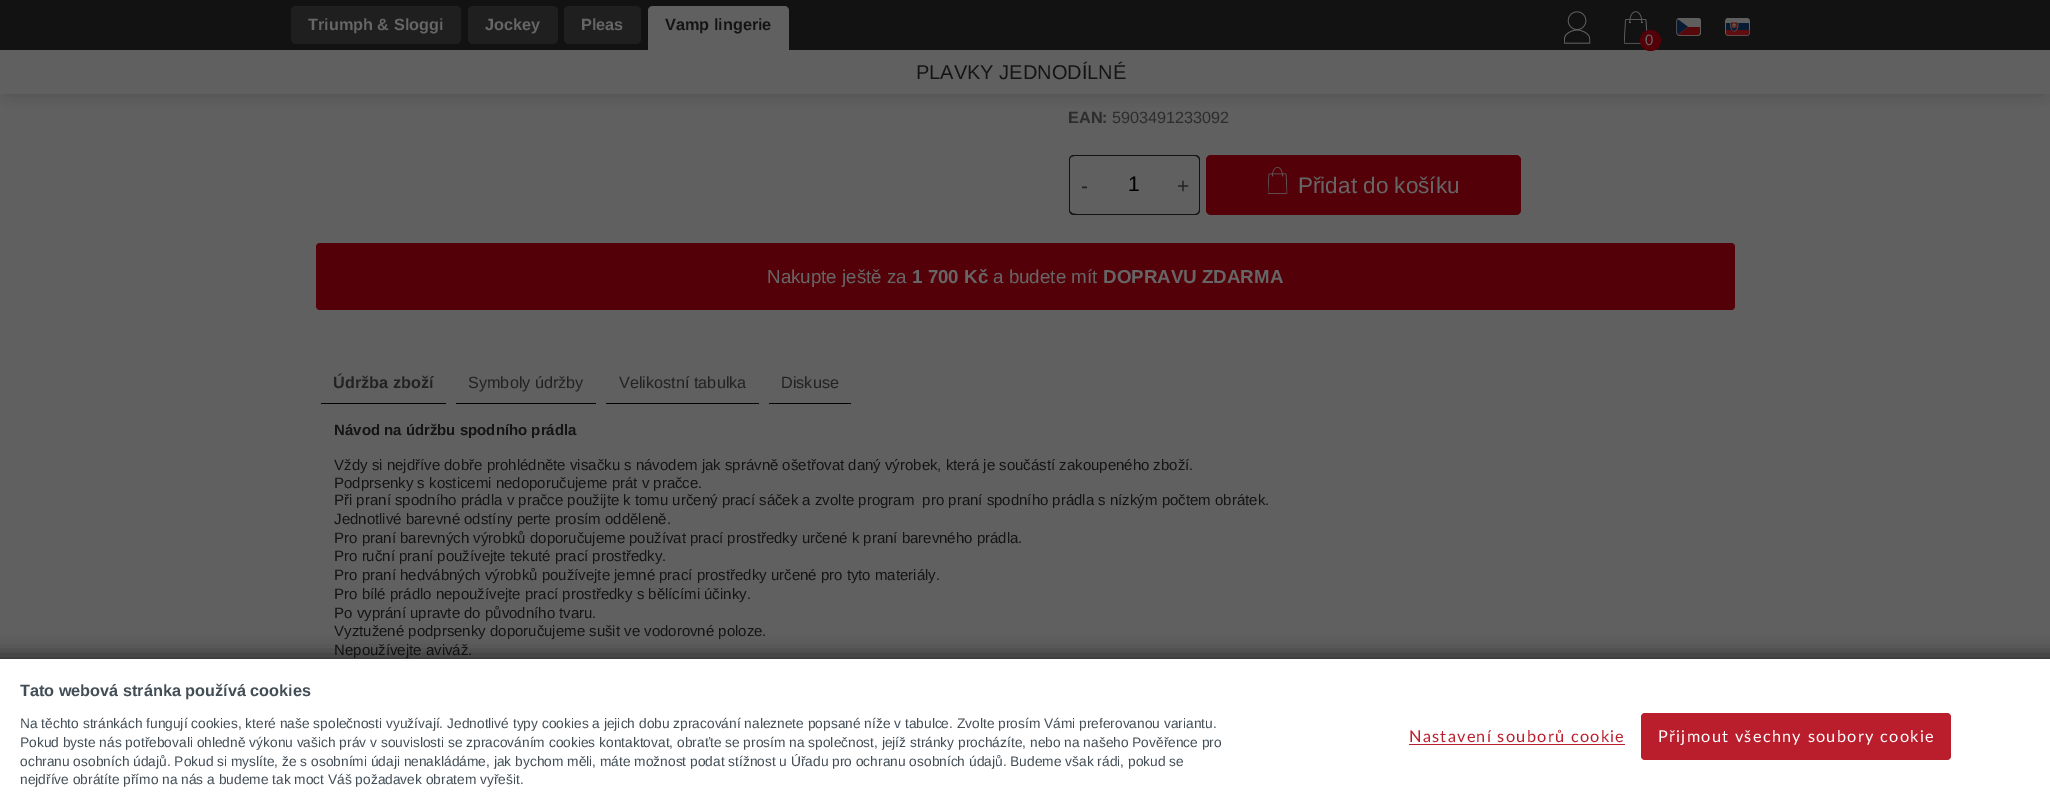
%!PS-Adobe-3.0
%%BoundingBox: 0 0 2050 797
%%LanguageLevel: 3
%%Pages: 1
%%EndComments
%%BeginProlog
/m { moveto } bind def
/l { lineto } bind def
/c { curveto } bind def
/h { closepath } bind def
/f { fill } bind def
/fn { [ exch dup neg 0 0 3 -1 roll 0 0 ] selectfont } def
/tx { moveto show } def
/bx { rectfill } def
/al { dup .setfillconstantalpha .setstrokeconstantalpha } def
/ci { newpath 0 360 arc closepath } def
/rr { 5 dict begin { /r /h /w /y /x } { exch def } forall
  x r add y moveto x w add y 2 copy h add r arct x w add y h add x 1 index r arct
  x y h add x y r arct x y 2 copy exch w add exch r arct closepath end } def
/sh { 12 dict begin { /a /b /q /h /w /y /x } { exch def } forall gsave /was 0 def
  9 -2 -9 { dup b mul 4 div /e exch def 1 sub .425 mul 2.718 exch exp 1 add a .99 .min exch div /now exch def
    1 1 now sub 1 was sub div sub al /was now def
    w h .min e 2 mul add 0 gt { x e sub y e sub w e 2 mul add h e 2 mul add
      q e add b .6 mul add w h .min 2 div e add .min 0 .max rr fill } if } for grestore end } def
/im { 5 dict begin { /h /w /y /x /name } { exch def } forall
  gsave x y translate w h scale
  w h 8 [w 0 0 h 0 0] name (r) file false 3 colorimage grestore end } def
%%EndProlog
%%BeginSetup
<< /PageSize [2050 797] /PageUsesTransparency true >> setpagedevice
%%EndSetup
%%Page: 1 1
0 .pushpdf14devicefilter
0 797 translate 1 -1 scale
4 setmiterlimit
0.376 setgray
0 0 2050 797 bx
0 setgray
9 59 2032 26 0 10 0.52 sh
0.071 setgray
0 0 2050 50 bx
0.122 setgray
291 6 170 38 5 rr f
/LiberationSans-Bold 16.25 fn
0.4 setgray
(Triumph & Sloggi) 308 30 tx
0.122 setgray
468 6 90 38 5 rr f
0.4 setgray
(Jockey) 485 30 tx
0.122 setgray
564 6 77 38 5 rr f
0.4 setgray
(Pleas) 581 30 tx
0.376 setgray
653 6 m 784 6 l 787 6 789 8 789 11 c 789 50 l 648 50 l 648 11 l 648 8 650 6 653 6 c h f
0.078 setgray
(Vamp lingerie) 665 30 tx
(image0.raw) 1564 11 27 33 im
(image1.raw) 1676 18 25 18 im
(image2.raw) 1725 18 25 18 im
(image3.raw) 1624 11 24 33 im
0.376 setgray
0 50 2050 44 bx
0.329 0 0.035 setrgbcolor
1650.5 40.5 10.5 ci f
/LiberationSans-Regular 15 fn
0.4 setgray
(0) 1645 45 tx
/LiberationSans-Regular 20 fn
0.078 setgray
(PLAVKY JEDNODÍLNÉ) 916 79 tx
/LiberationSans-Bold 16.25 fn
0.18 0.176 0.176 setrgbcolor
(EAN:) 1068 123 tx
/LiberationSans-Regular 16.25 fn
(5903491233092) 1112 123 tx
0.071 setgray
1074 155 m 1100 155 l 1100 215 l 1074 215 l 1071 215 1069 213 1069 210 c 1069 160 l 1069 157 1071 155 1074 155 c h 1074 156 m 1100 156 l 1100 214 l 1096 214 1074 215 1072 213 c 1070 211 l 1070 159 l 1071 157 l h eofill
/LiberationSans-Regular 21 fn
0.133 setgray
(-) 1081 193 tx
0.071 setgray
1100 155 69 1 bx
1100 214 69 1 bx
0 setgray
(1) 1128 191 tx
0.071 setgray
1169 155 m 1195 155 l 1198 155 1200 157 1200 160 c 1200 210 l 1200 213 1198 215 1195 215 c 1169 215 l h 1169 156 m 1195 156 l 1197 156 1199 158 1199 160 c 1199 210 l 1199 212 1197 214 1195 214 c 1169 214 l h eofill
0.133 setgray
(+) 1177 193 tx
0.325 0 0.035 setrgbcolor
1206 155 315 60 5 rr f
(image4.raw) 1268 167 20 27 im
/LiberationSans-Regular 22.5 fn
0.4 setgray
(Přidat do košíku) 1298 193 tx
0.329 0 0.035 setrgbcolor
316 243 1419 67 4 rr f
/LiberationSans-Regular 18.75 fn
0.4 setgray
(Nakupte ještě za) 767 283 tx
/LiberationSans-Bold 18.75 fn
(1 700 Kč) 912 283 tx
/LiberationSans-Regular 18.75 fn
(a budete mít) 993 283 tx
/LiberationSans-Bold 18.75 fn
(DOPRAVU ZDARMA) 1103 283 tx
0 setgray
321 403 125 1 bx
/LiberationSans-Bold 16.25 fn
0.133 setgray
(Údržba zboží) 333 388 tx
0 setgray
456 403 140 1 bx
/LiberationSans-Regular 16.25 fn
0.133 setgray
(Symboly údržby) 468 388 tx
0 setgray
606 403 153 1 bx
0.133 setgray
(Velikostní tabulka) 619 388 tx
0 setgray
769 403 82 1 bx
0.133 setgray
(Diskuse) 781 388 tx
/LiberationSans-Bold 15 fn
0.078 setgray
(Návod na údržbu spodního prádla) 334 435 tx
/LiberationSans-Regular 15 fn
(Vždy si nejdříve dobře prohlédněte visačku s návodem jak správně ošetřovat daný výrobek, která je součástí zakoupeného zboží.) 334 470 tx
(Podprsenky s kosticemi nedoporučujeme prát v pračce.) 334 488 tx
(Při praní spodního prádla v pračce použijte k tomu určený prací sáček a zvolte program  pro praní spodního prádla s nízkým počtem obrátek.) 334 505 tx
(Jednotlivé barevné odstíny perte prosím odděleně.) 334 524 tx
(Pro praní barevných výrobků doporučujeme používat prací prostředky určené k praní barevného prádla.) 334 543 tx
(Pro ruční praní používejte tekuté prací prostředky.) 334 561 tx
(Pro praní hedvábných výrobků používejte jemné prací prostředky určené pro tyto materiály.) 334 580 tx
(Pro bílé prádlo nepoužívejte prací prostředky s bělícími účinky.) 334 599 tx
(Po vyprání upravte do původního tvaru.) 334 618 tx
(Vyztužené podprsenky doporučujeme sušit ve vodorovné poloze.) 334 636 tx
(Nepoužívejte aviváž.) 334 655 tx
0 setgray
-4 655 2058 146 0 9 0.5 sh
1 setgray
0 659 2050 138 bx
/LiberationSans-Bold 16.25 fn
0.259 0.302 0.333 setrgbcolor
(Tato webová stránka používá cookies) 20 696 tx
/LiberationSans-Regular 13.75 fn
(Na těchto stránkách fungují cookies, které naše společnosti využívají. Jednotlivé typy cookies a jejich dobu zpracování naleznete popsané níže v tabulce. Zvolte prosím Vámi preferovanou variantu.) 20 728 tx
(Pokud byste nás potřebovali ohledně výkonu vašich práv v souvislosti se zpracováním cookies kontaktovat, obraťte se prosím na společnost, jejíž stránky procházíte, nebo na našeho Pověřence pro) 20 747 tx
(ochranu osobních údajů. Pokud si myslíte, že s osobními údaji nenakládáme, jak bychom měli, máte možnost podat stížnost u Úřadu pro ochranu osobních údajů. Budeme však rádi, pokud se) 20 766 tx
(nejdříve obrátíte přímo na nás a budeme tak moct Váš požadavek obratem vyřešit.) 20 784 tx
/Lato-Regular 16.25 fn
0.729 0.118 0.176 setrgbcolor
1409 742 m 1.3 0 (Nastavení souborů cookie) ashow
1409 744 216 1 bx
1641 713 310 47 4 rr f
1 setgray
1658 742 m 1.3 0 (Přijmout všechny soubory cookie) ashow
.poppdf14devicefilter showpage
%%EOF
